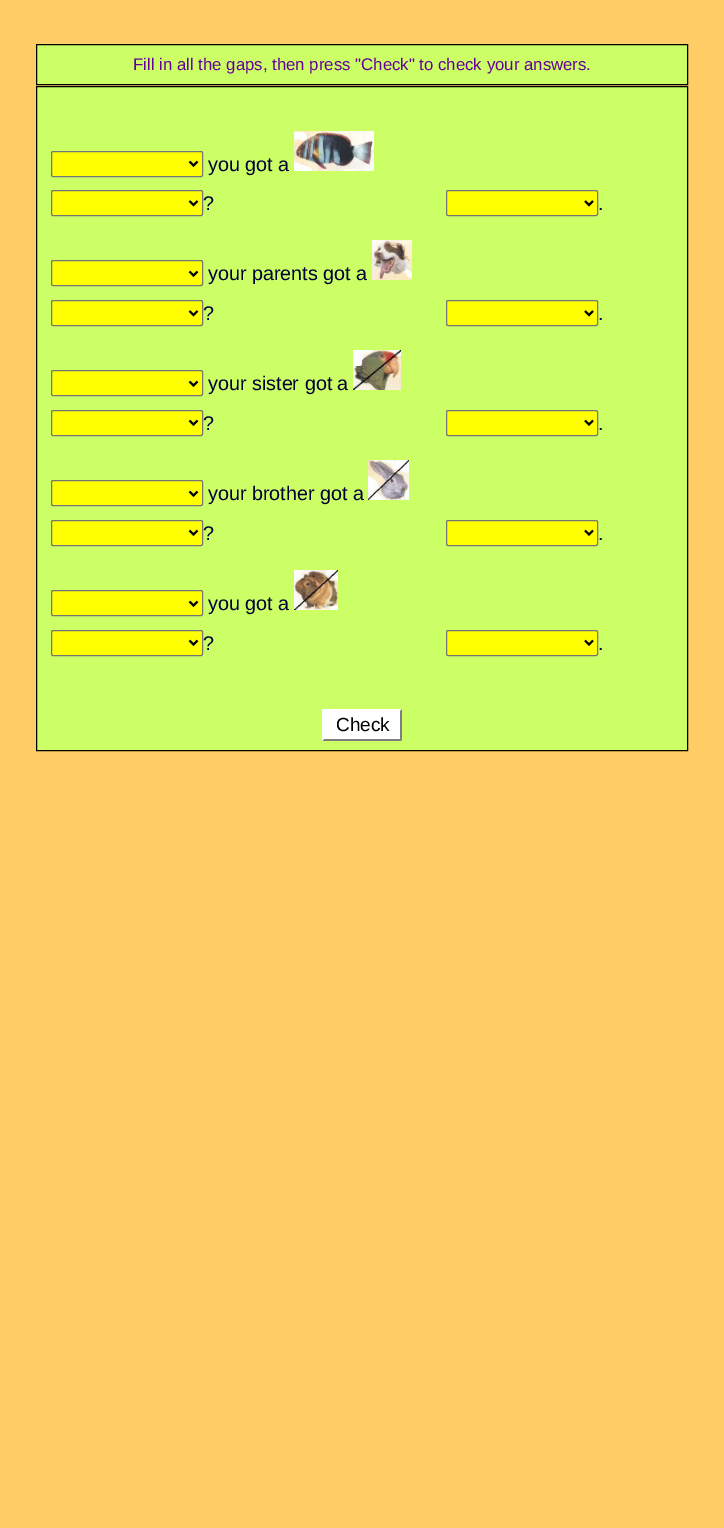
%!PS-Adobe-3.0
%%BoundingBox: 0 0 724 1528
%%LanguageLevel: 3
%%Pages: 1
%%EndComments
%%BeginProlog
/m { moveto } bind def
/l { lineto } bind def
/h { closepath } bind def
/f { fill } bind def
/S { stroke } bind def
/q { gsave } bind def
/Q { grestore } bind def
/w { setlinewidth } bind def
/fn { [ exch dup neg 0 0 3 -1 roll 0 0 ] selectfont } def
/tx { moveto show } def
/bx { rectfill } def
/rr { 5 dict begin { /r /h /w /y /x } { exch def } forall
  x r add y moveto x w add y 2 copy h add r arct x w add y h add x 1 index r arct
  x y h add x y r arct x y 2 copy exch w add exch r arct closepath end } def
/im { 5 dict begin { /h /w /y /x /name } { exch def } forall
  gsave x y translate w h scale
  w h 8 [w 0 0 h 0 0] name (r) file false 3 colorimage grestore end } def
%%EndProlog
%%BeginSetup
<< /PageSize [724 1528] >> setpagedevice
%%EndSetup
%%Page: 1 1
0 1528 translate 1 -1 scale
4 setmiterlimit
1 0.8 0.4 setrgbcolor
0 0 724 1528 bx
0.8 1 0.4 setrgbcolor
36.5 44.5 m 687.5 44.5 l 687.5 84.5 l 36.5 84.5 l h q f Q
0 setgray
S
/LiberationSans-Regular 16.8 fn
0.4 0 0.6 setrgbcolor
(Fill in all the gaps, then press "Check" to check your answers.) 133 70 tx
0.8 1 0.4 setrgbcolor
36.5 86.5 m 687.5 86.5 l 687.5 750.5 l 36.5 750.5 l h q f Q
0 setgray
S
1 1 0 setrgbcolor
51.5 151.5 151 25 1.5 rr q f Q
0.463 setgray
S
0 setgray
2 w
189.5 161.5 m 193.5 165.5 l 197.5 161.5 l S
/LiberationSans-Regular 19.75 fn
0 0 0.2 setrgbcolor
(you got a) 208 171 tx
(image0.raw) 294 131 80 40 im
1 1 0 setrgbcolor
51.5 190.5 151 25 1.5 rr q f Q
0.463 setgray
1 w
S
0 setgray
2 w
189.5 201 m 193.5 205 l 197.5 201 l S
0 0 0.2 setrgbcolor
(?) 203 210 tx
1 1 0 setrgbcolor
446.5 190.5 151 25 1.5 rr q f Q
0.463 setgray
1 w
S
0 setgray
2 w
585 201 m 589 205 l 593 201 l S
0 0 0.2 setrgbcolor
(.) 598 210 tx
1 1 0 setrgbcolor
51.5 260.5 151 25 1.5 rr q f Q
0.463 setgray
1 w
S
0 setgray
2 w
189.5 271.5 m 193.5 275.5 l 197.5 271.5 l S
0 0 0.2 setrgbcolor
(your parents got a) 208 280 tx
(image1.raw) 372 240 40 40 im
1 1 0 setrgbcolor
51.5 300.5 151 25 1.5 rr q f Q
0.463 setgray
1 w
S
0 setgray
2 w
189.5 311 m 193.5 315 l 197.5 311 l S
0 0 0.2 setrgbcolor
(?) 203 320 tx
1 1 0 setrgbcolor
446.5 300.5 151 25 1.5 rr q f Q
0.463 setgray
1 w
S
0 setgray
2 w
585 311 m 589 315 l 593 311 l S
0 0 0.2 setrgbcolor
(.) 598 320 tx
1 1 0 setrgbcolor
51.5 370.5 151 25 1.5 rr q f Q
0.463 setgray
1 w
S
0 setgray
2 w
189.5 381.5 m 193.5 385.5 l 197.5 381.5 l S
0 0 0.2 setrgbcolor
(your sister got a) 208 390 tx
(image2.raw) 353 350 48 40 im
1 1 0 setrgbcolor
51.5 410.5 151 25 1.5 rr q f Q
0.463 setgray
1 w
S
0 setgray
2 w
189.5 420.5 m 193.5 424.5 l 197.5 420.5 l S
0 0 0.2 setrgbcolor
(?) 203 430 tx
1 1 0 setrgbcolor
446.5 410.5 151 25 1.5 rr q f Q
0.463 setgray
1 w
S
0 setgray
2 w
585 420.5 m 589 424.5 l 593 420.5 l S
0 0 0.2 setrgbcolor
(.) 598 430 tx
1 1 0 setrgbcolor
51.5 480.5 151 25 1.5 rr q f Q
0.463 setgray
1 w
S
0 setgray
2 w
189.5 491.5 m 193.5 495.5 l 197.5 491.5 l S
0 0 0.2 setrgbcolor
(your brother got a) 208 500 tx
(image3.raw) 368 460 41 40 im
1 1 0 setrgbcolor
51.5 520.5 151 25 1.5 rr q f Q
0.463 setgray
1 w
S
0 setgray
2 w
189.5 530.5 m 193.5 534.5 l 197.5 530.5 l S
0 0 0.2 setrgbcolor
(?) 203 540 tx
1 1 0 setrgbcolor
446.5 520.5 151 25 1.5 rr q f Q
0.463 setgray
1 w
S
0 setgray
2 w
585 530.5 m 589 534.5 l 593 530.5 l S
0 0 0.2 setrgbcolor
(.) 598 540 tx
1 1 0 setrgbcolor
51.5 590.5 151 25 1.5 rr q f Q
0.463 setgray
1 w
S
0 setgray
2 w
189.5 601.5 m 193.5 605.5 l 197.5 601.5 l S
0 0 0.2 setrgbcolor
(you got a) 208 610 tx
(image4.raw) 294 570 44 40 im
1 1 0 setrgbcolor
51.5 630.5 151 25 1.5 rr q f Q
0.463 setgray
1 w
S
0 setgray
2 w
189.5 640.5 m 193.5 644.5 l 197.5 640.5 l S
0 0 0.2 setrgbcolor
(?) 203 650 tx
1 1 0 setrgbcolor
446.5 630.5 151 25 1.5 rr q f Q
0.463 setgray
1 w
S
0 setgray
2 w
585 640.5 m 589 644.5 l 593 640.5 l S
0 0 0.2 setrgbcolor
(.) 598 650 tx
1 setgray
322 709 80 32 bx
0.498 setgray
402 709 m 402 741 l 400 739 l 400 711 l h f
402 741 m 322 741 l 324 739 l 400 739 l h f
1 setgray
322 741 m 322 709 l 324 711 l 324 739 l h f
/LiberationSans-Regular 19 fn
0 setgray
(Check) 336 731 tx
showpage
%%EOF
